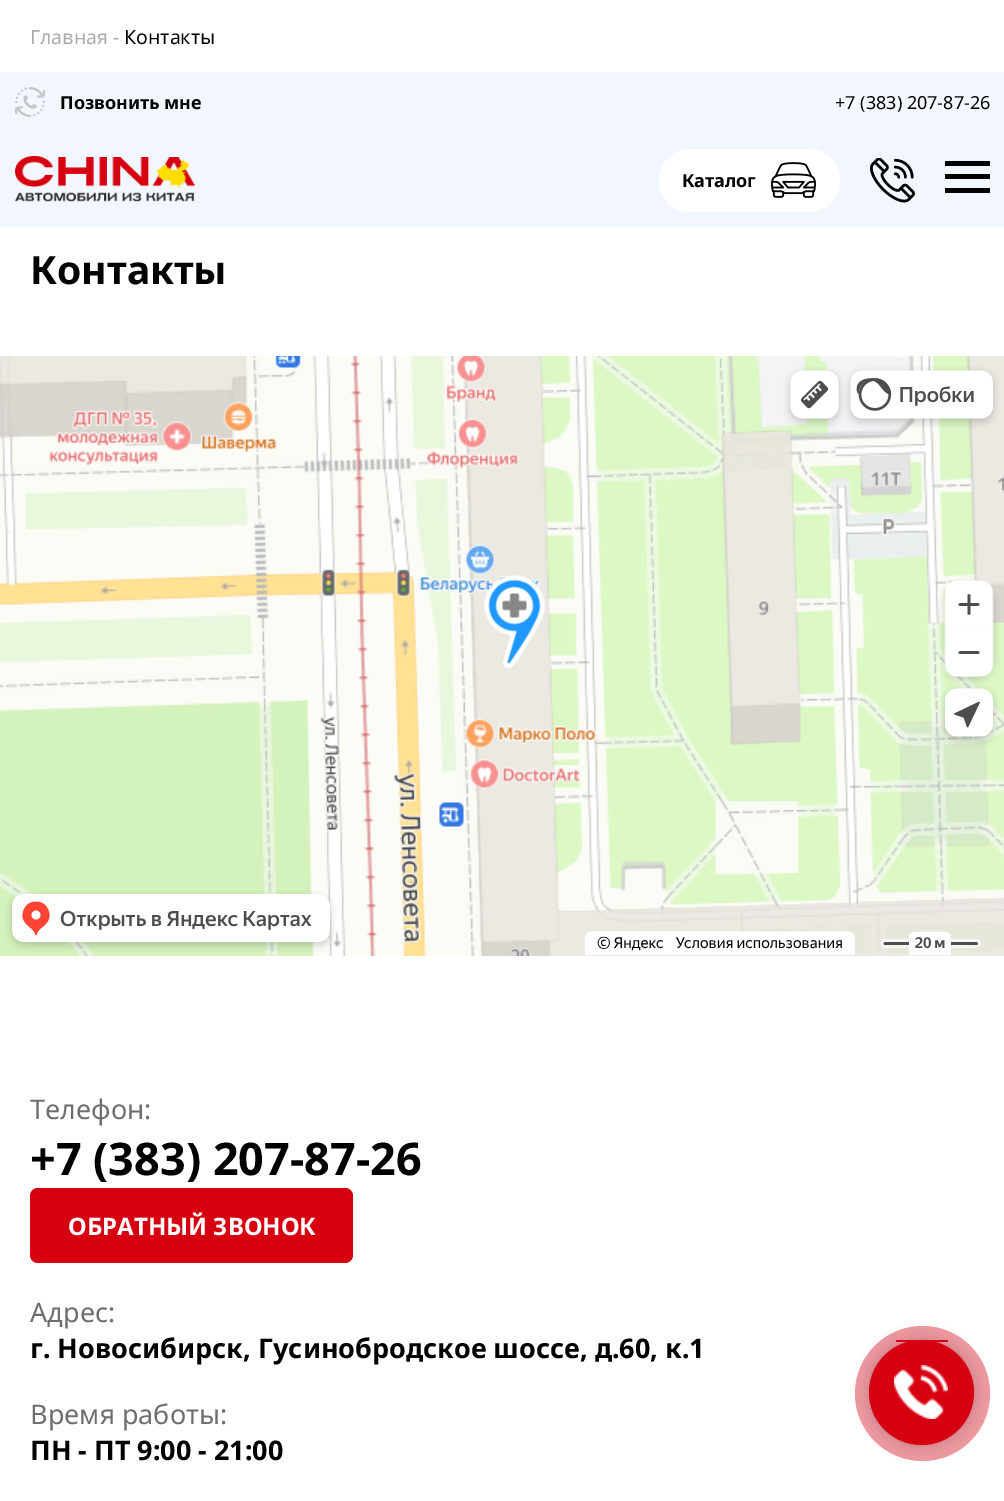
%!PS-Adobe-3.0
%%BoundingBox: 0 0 1004 1501
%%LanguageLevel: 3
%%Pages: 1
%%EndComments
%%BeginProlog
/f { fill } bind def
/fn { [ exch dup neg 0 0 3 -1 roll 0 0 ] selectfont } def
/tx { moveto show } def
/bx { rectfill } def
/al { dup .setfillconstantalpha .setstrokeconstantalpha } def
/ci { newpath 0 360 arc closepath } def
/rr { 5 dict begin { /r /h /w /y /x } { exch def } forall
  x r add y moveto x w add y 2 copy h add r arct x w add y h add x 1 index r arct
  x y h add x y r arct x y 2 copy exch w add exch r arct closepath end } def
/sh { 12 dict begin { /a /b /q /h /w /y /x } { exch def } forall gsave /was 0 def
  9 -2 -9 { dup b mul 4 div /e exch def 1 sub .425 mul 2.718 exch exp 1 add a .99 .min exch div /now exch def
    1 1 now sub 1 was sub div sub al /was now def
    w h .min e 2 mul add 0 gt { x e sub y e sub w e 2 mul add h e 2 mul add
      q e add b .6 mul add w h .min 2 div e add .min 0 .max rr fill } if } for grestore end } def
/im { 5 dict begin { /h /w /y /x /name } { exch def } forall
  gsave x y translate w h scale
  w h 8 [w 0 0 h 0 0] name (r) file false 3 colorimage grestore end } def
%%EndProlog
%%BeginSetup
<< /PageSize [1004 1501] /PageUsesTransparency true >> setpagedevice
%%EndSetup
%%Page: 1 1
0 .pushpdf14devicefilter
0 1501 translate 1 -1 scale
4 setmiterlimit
1 setgray
0 0 1004 1501 bx
/NotoSans-Regular 19.5 fn
0.667 setgray
(Главная -) 30 44 tx
0.004 setgray
(Контакты) 124 44 tx
0.949 0.965 0.996 setrgbcolor
0 72 1004 155 bx
(image0.raw) 15 87 30 30 im
/NotoSans-Bold 18 fn
0.004 setgray
(Позвонить мне) 60 109 tx
/NotoSans-Regular 18 fn
(+7 \(383\) 207-87-26) 835 109 tx
(image1.raw) 15 156 180 46 im
1 setgray
659 149 181 63 31.5 rr f
/NotoSans-Bold 18 fn
0.004 setgray
(Каталог) 682 187 tx
(image2.raw) 771 162 45 36 im
(image3.raw) 870 158 45 45 im
945 161 45 5 bx
945 174 45 5 bx
945 188 45 5 bx
/NotoSans-Bold 39 fn
(Контакты) 30 284 tx
(image4.raw) 0 356 1004 600 im
/NotoSans-Regular 27 fn
0.431 setgray
(Телефон:) 30 1119 tx
/NotoSans-Bold 45 fn
0.004 setgray
(+7 \(383\) 207-87-26) 30 1175 tx
0.843 0 0.063 setrgbcolor
30 1188 323 75 8 rr f
/NotoSans-Bold 24 fn
1 setgray
(ОБРАТНЫЙ ЗВОНОК) 68 1235 tx
/NotoSans-Regular 27 fn
0.431 setgray
(Адрес:) 30 1322 tx
/NotoSans-Bold 27 fn
0.004 setgray
(г. Новосибирск, Гусинобродское шоссе, д.60, к.1) 30 1358 tx
/NotoSans-Regular 27 fn
0.431 setgray
(Время работы:) 30 1424 tx
/NotoSans-Bold 27 fn
0.004 setgray
(ПН - ПТ 9:00 - 21:00) 30 1460 tx
0.937 0.6 0.624 setrgbcolor
922.5 1393.5 67.5 ci f
0.012 setgray
869 1340 105 105 52.5 8 0.2 sh
0.843 0 0.063 setrgbcolor
921.5 1392.5 52.5 ci f
896 1340 52 2 bx
(image5.raw) 894 1365 54 54 im
.poppdf14devicefilter showpage
%%EOF
